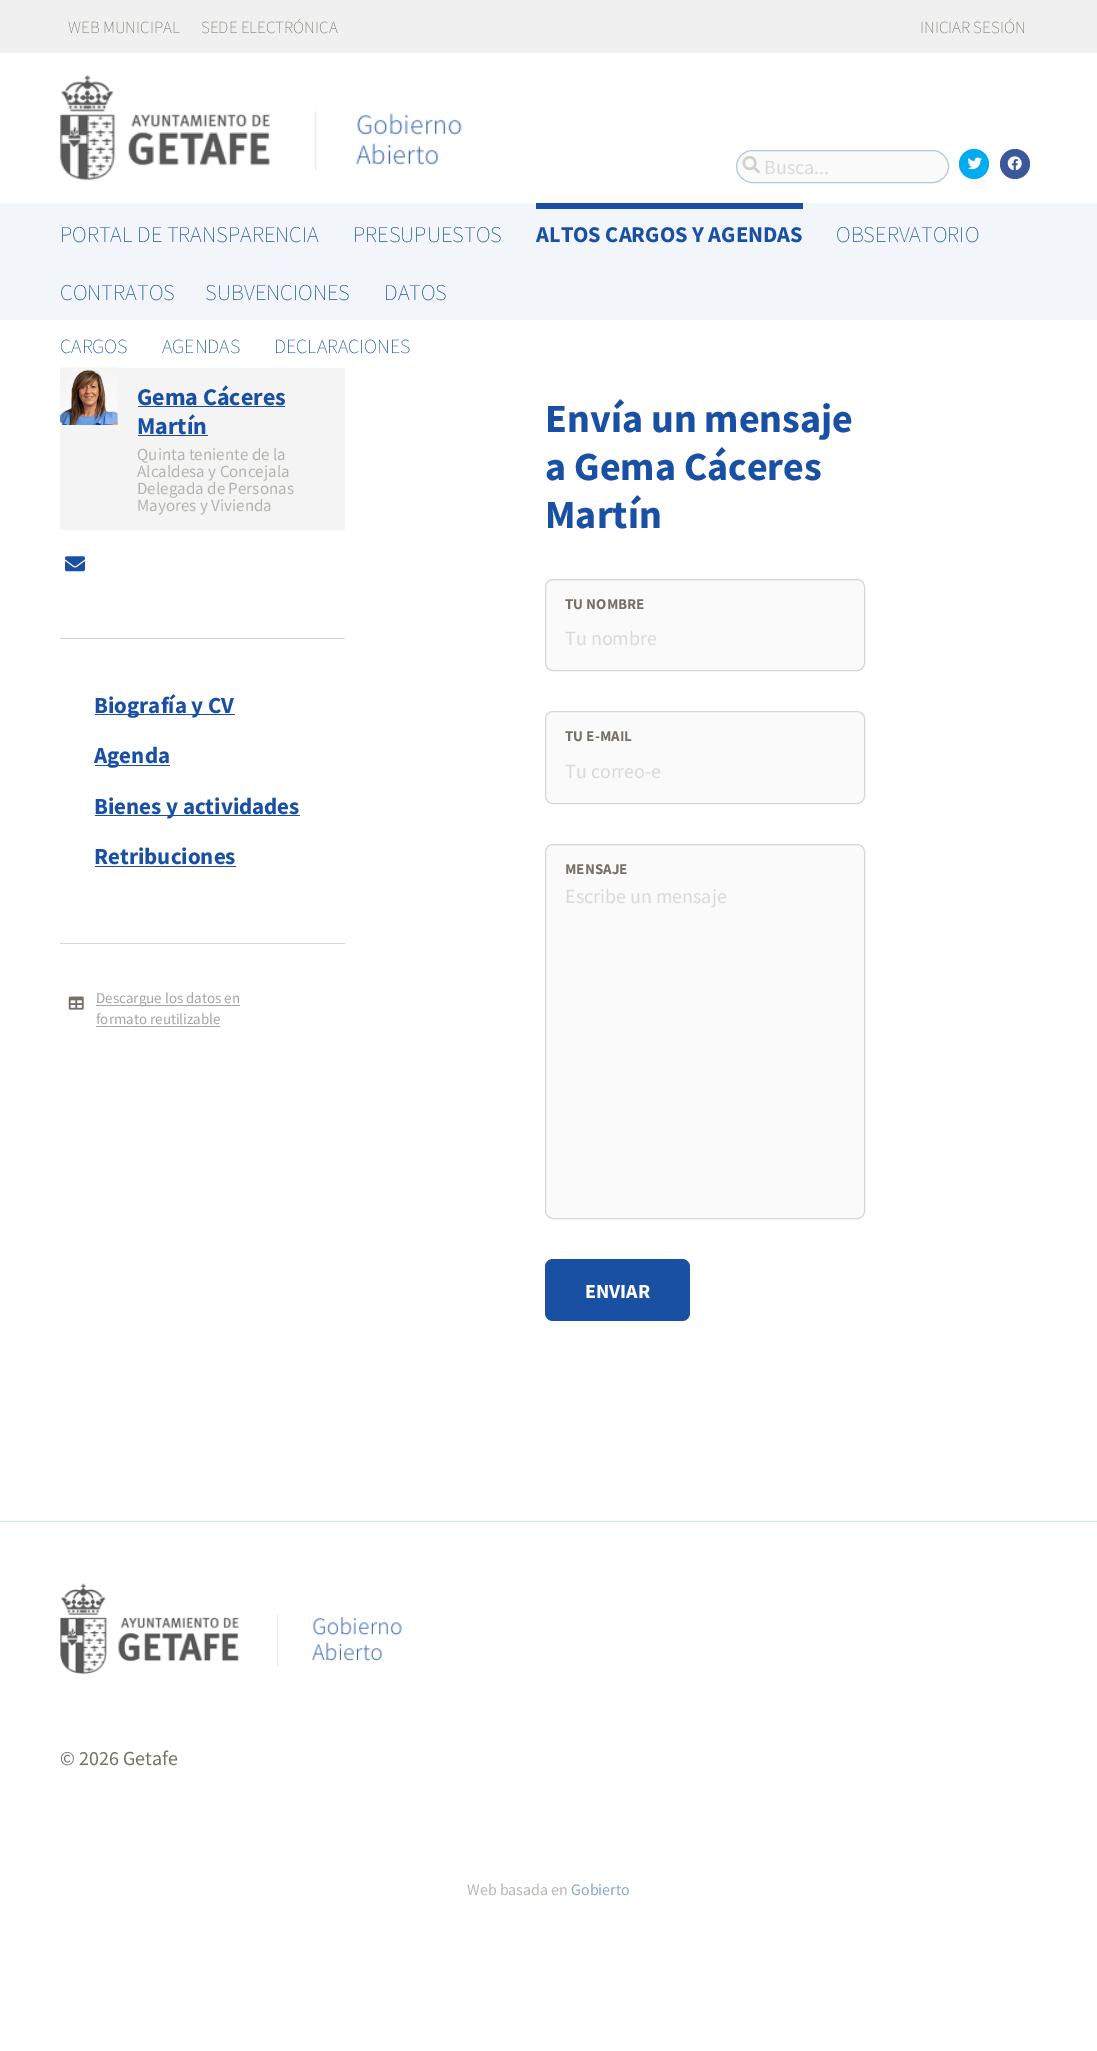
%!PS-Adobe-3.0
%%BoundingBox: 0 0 1097 2051
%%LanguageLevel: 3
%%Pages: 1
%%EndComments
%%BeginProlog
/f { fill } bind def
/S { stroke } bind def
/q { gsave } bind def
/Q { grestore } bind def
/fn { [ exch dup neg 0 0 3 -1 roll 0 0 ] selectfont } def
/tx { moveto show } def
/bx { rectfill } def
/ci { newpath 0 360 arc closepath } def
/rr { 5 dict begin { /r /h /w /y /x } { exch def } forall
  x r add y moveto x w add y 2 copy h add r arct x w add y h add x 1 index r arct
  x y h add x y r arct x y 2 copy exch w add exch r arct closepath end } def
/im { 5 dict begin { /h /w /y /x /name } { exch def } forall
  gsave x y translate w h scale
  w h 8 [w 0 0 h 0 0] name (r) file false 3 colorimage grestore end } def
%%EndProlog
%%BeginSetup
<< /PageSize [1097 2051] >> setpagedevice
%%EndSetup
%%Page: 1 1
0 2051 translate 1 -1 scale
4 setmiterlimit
1 setgray
0 0 1097 2051 bx
0.941 setgray
0 0 1097 53 bx
/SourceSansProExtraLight-ExtraLight 17 fn
0.463 0.443 0.408 setrgbcolor
(WEB MUNICIPAL) 68 33 tx
(SEDE ELECTRÓNICA) 201 33 tx
(INICIAR SESIÓN) 920 33 tx
(image0.raw) 60 75 402 106 im
0.98 setgray
736.5 150.5 212 32 16 rr q f Q
0.718 0.78 0.878 setrgbcolor
S
(image1.raw) 742 156 18 18 im
/SourceSansPro-Regular 20 fn
0.851 setgray
(Busca...) 764 174 tx
0 0.671 0.937 setrgbcolor
974 164 15 ci f
(image2.raw) 967 157 15 13 im
0.227 0.345 0.604 setrgbcolor
1015 164 15 ci f
(image3.raw) 1007 156 15 15 im
0.949 0.961 0.98 setrgbcolor
0 203 1097 117 bx
/SourceSansProExtraLight-ExtraLight 22.5 fn
0.098 0.314 0.639 setrgbcolor
(PORTAL DE TRANSPARENCIA) 60 242 tx
(PRESUPUESTOS) 353 242 tx
536 203 267 6 bx
/SourceSansPro-Bold 22.5 fn
(ALTOS CARGOS Y AGENDAS) 536 242 tx
/SourceSansProExtraLight-ExtraLight 22.5 fn
(OBSERVATORIO) 836 242 tx
(CONTRATOS) 60 300 tx
(SUBVENCIONES) 205 300 tx
(DATOS) 384 300 tx
/SourceSansProExtraLight-ExtraLight 20 fn
(CARGOS) 60 353 tx
(AGENDAS) 162 353 tx
(DECLARACIONES) 274 353 tx
0.961 0.957 0.957 setrgbcolor
60 368 285 162 bx
(image4.raw) 60 367 58 58 im
/SourceSansPro-Bold 24 fn
0.098 0.314 0.639 setrgbcolor
(Gema Cáceres) 137 405 tx
138 406 147 1 bx
(Martín) 137 434 tx
138 435 70 1 bx
/SourceSansPro-Regular 17 fn
0.714 0.702 0.682 setrgbcolor
(Quinta teniente de la) 137 460 tx
(Alcaldesa y Concejala) 137 477 tx
(Delegada de Personas) 137 494 tx
(Mayores y Vivienda) 137 511 tx
(image5.raw) 65 556 20 16 im
0.824 setgray
60 638 285 1 bx
0.098 0.314 0.639 setrgbcolor
95 714 140 1 bx
/SourceSansPro-Bold 23 fn
(Biografía y CV) 94 713 tx
95 765 75 1 bx
(Agenda) 94 763 tx
95 815 205 1 bx
(Bienes y actividades) 94 814 tx
(Retribuciones) 94 864 tx
95 866 141 1 bx
0.839 setgray
60 943 285 1 bx
(image6.raw) 68 996 16 14 im
0.647 setgray
96 1005 144 1 bx
/SourceSansPro-Regular 15 fn
(Descargue los datos en) 96 1003 tx
(formato reutilizable) 96 1024 tx
96 1026 124 1 bx
/SourceSansPro-Bold 40 fn
0.098 0.314 0.639 setrgbcolor
(Envía un mensaje) 545 432 tx
(a Gema Cáceres) 545 480 tx
(Martín) 545 528 tx
0.98 setgray
545.5 579.5 319 91 7.5 rr q f Q
0.839 setgray
S
/SourceSansPro-Bold 15 fn
0.463 0.443 0.408 setrgbcolor
(TU NOMBRE) 565 609 tx
/SourceSansPro-Regular 20 fn
0.851 setgray
(Tu nombre) 565 645 tx
0.98 setgray
545.5 711.5 319 92 7.5 rr q f Q
0.839 setgray
S
/SourceSansPro-Bold 15 fn
0.463 0.443 0.408 setrgbcolor
(TU E-MAIL) 565 741 tx
/SourceSansPro-Regular 20 fn
0.851 setgray
(Tu correo-e) 565 778 tx
0.98 setgray
545.5 844.5 319 374 7.5 rr q f Q
0.839 setgray
S
/SourceSansPro-Bold 15 fn
0.463 0.443 0.408 setrgbcolor
(MENSAJE) 565 874 tx
/SourceSansPro-Regular 20 fn
0.851 setgray
(Escribe un mensaje) 565 903 tx
0.098 0.314 0.639 setrgbcolor
545 1259 145 62 8 rr f
/SourceSansPro-Bold 20 fn
1 setgray
(ENVIAR) 585 1298 tx
0.8 0.91 0.922 setrgbcolor
0 1521 1097 1 bx
(image7.raw) 60 1583 342 91 im
/SourceSansPro-Regular 20 fn
0.463 0.443 0.408 setrgbcolor
(© 2026 Getafe) 60 1765 tx
/SourceSansPro-Regular 16 fn
0.733 0.722 0.706 setrgbcolor
(Web basada en) 467 1895 tx
0.549 0.659 0.82 setrgbcolor
(Gobierto) 571 1895 tx
showpage
%%EOF
